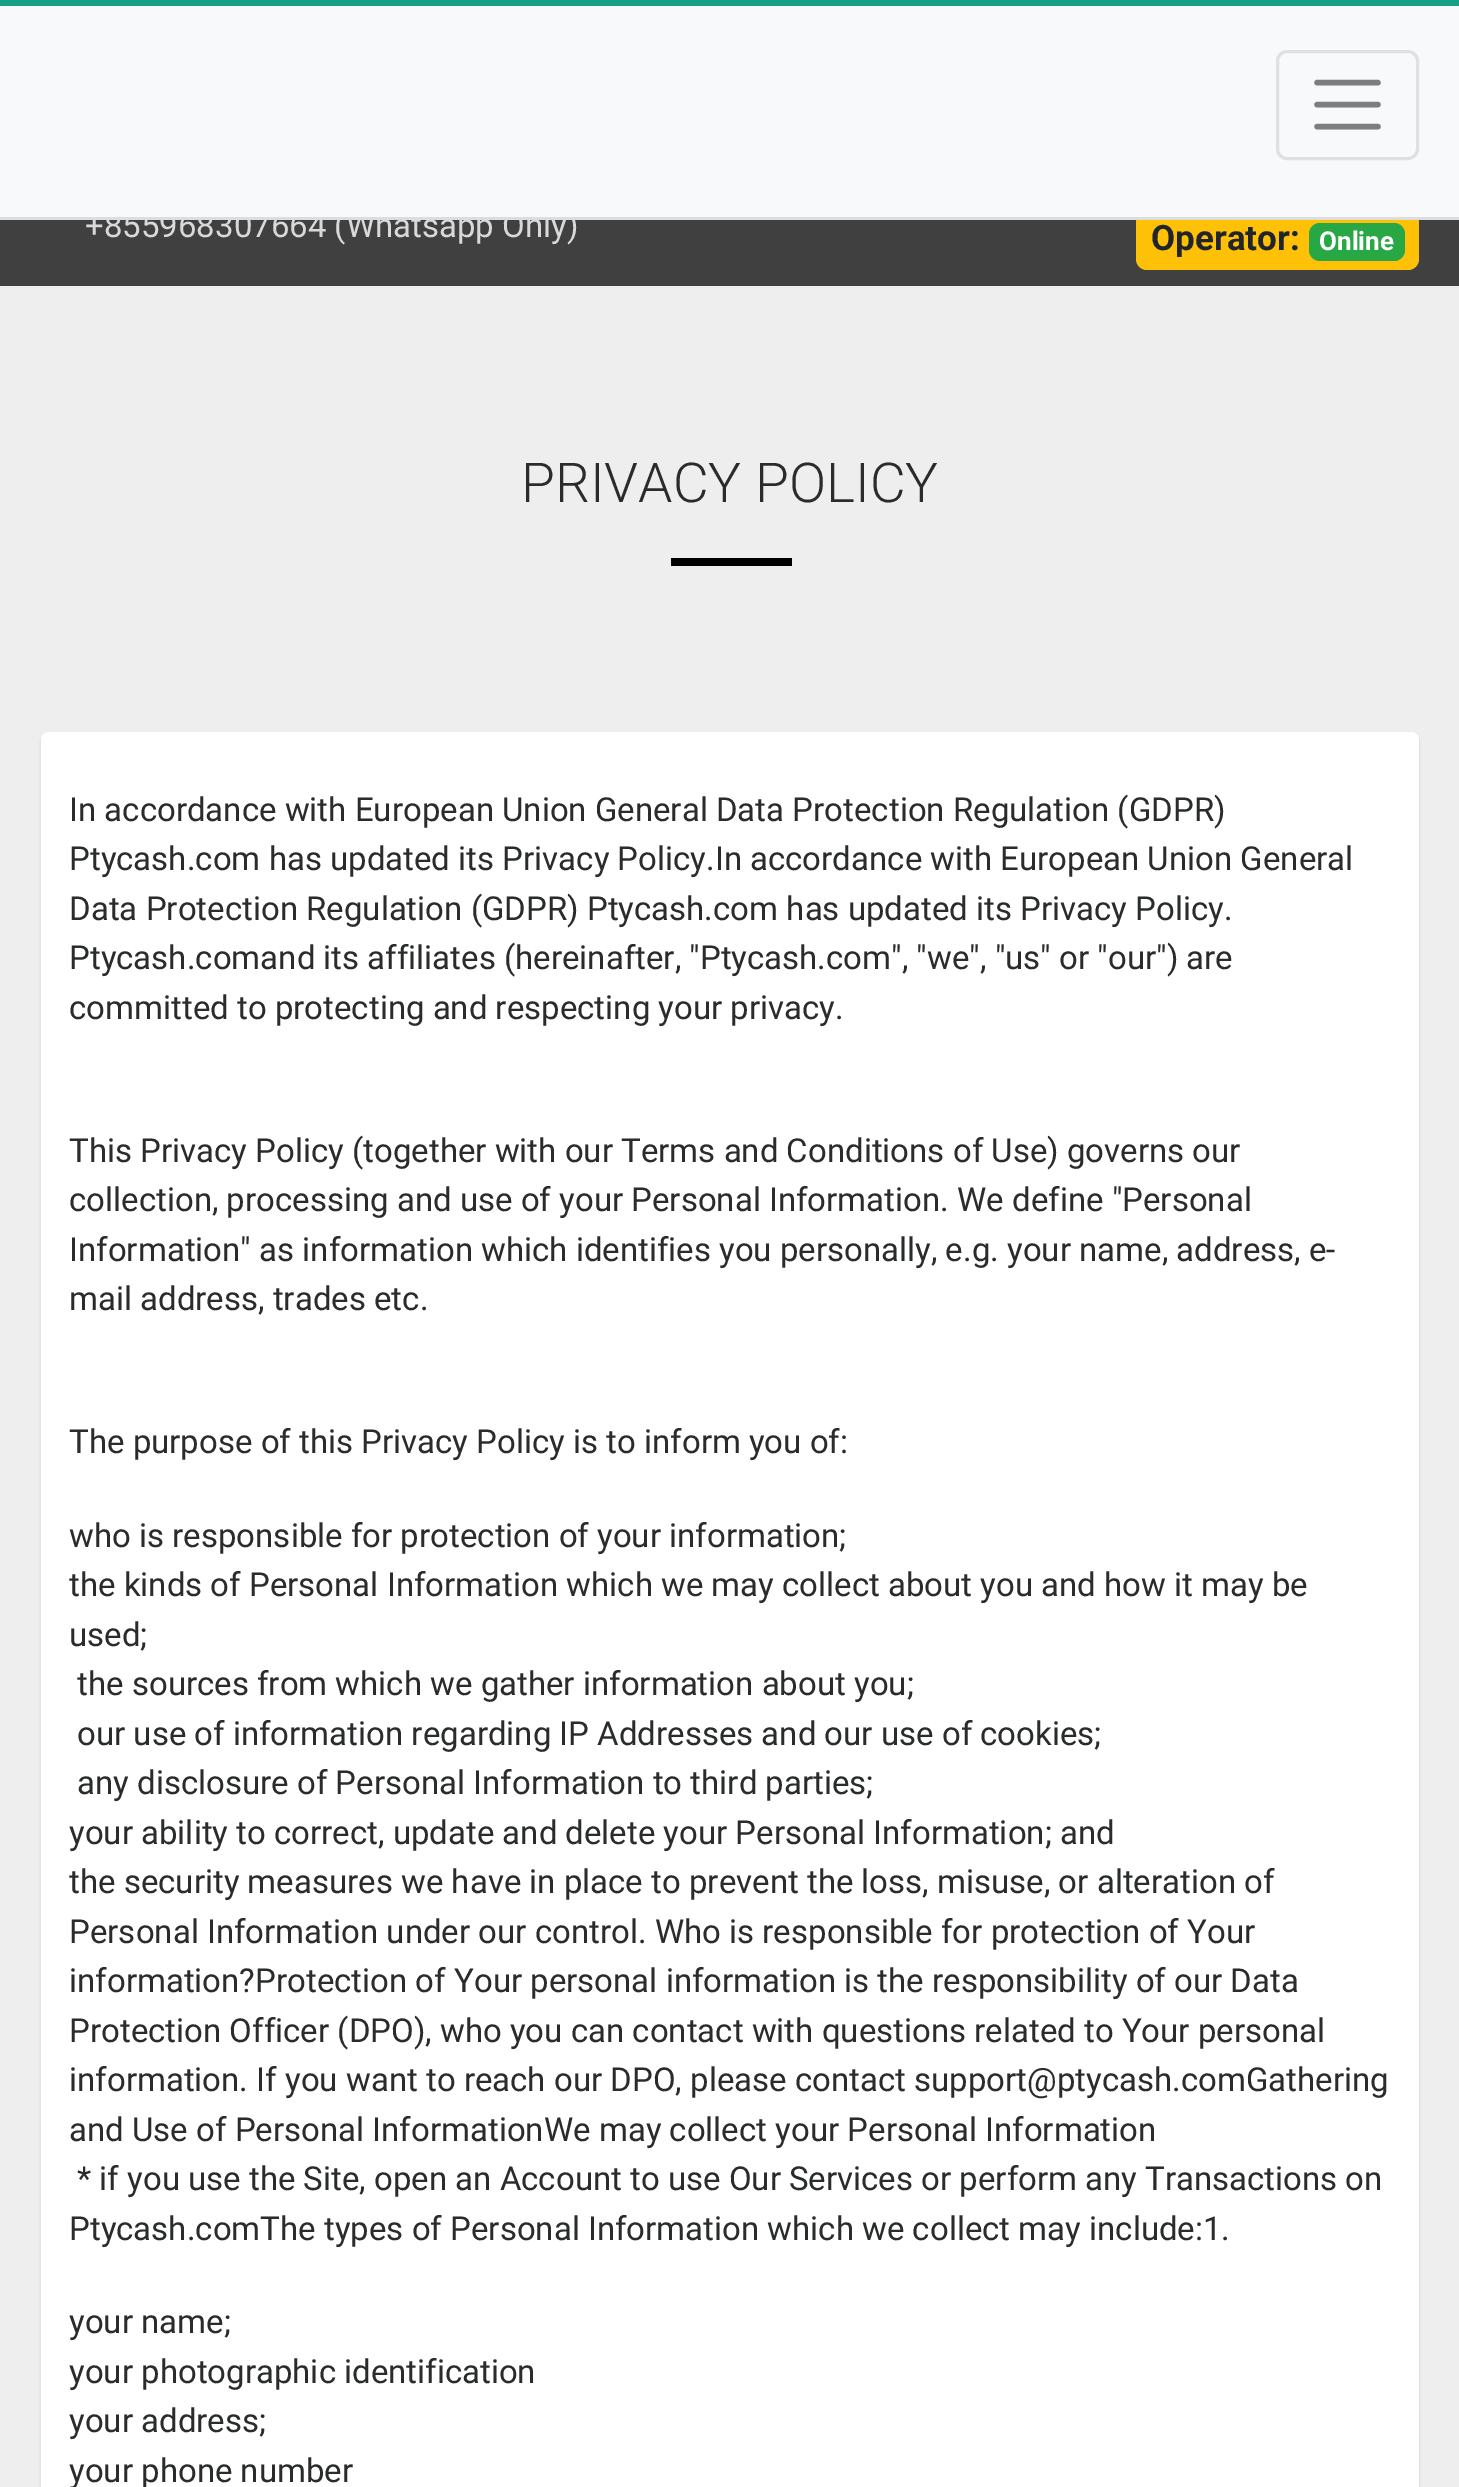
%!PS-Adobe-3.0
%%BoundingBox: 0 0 1459 2487
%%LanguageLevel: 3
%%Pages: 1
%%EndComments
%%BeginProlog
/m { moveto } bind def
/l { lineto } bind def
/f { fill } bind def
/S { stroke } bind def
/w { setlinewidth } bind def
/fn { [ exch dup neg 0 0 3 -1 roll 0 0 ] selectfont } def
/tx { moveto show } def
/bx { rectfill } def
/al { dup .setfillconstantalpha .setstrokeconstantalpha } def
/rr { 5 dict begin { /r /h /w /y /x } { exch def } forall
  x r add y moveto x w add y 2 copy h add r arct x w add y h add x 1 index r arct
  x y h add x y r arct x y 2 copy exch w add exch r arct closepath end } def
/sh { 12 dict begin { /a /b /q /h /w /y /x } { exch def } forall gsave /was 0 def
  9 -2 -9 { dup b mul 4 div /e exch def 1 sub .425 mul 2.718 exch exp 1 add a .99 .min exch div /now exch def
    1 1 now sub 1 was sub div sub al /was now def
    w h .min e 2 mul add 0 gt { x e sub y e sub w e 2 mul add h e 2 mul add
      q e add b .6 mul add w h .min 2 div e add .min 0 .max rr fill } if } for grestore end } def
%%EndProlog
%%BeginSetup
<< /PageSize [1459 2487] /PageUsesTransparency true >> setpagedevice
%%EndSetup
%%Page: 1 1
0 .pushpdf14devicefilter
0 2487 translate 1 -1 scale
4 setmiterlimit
0.933 setgray
0 0 1459 2487 bx
0.086 0.627 0.522 setrgbcolor
0 0 1459 6 bx
0.251 setgray
0 220 1459 66 bx
/Roboto-Regular 33 fn
0.851 setgray
(+855968307664 \(Whatsapp Only\)) 85 237 tx
1 0.757 0.027 setrgbcolor
1136 212 283 58 11 rr f
0.973 0.976 0.98 setrgbcolor
0 6 1459 211 bx
0.867 setgray
0 217 1459 3 bx
0.875 0.878 0.882 setrgbcolor
3 w
1277.5 51.5 140 107 9.5 rr S
0.486 0.49 0.49 setrgbcolor
5.5 w
1 setlinecap
1317 82.5 m 1378 82.5 l 1317 104.5 m 1378 104.5 l 1317 126.5 m 1378 126.5 l S
/Roboto-Bold 35 fn
0.129 0.145 0.161 setrgbcolor
(Operator:) 1151 250 tx
0.157 0.655 0.271 setrgbcolor
1309 223 96 38 11 rr f
/Roboto-Bold 26 fn
1 setgray
(Online) 1319 250 tx
/Roboto-Light 55 fn
0.161 0.169 0.173 setrgbcolor
(PRIVACY POLICY) 521 502 tx
0 setgray
671 558 121 8 bx
0.706 setgray
41 734 1378 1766 8 1.5 0.5 sh
1 setgray
41 732 1378 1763 8 rr f
/Roboto-Regular 33 fn
0.161 0.169 0.173 setrgbcolor
(In accordance with European Union General Data Protection Regulation \(GDPR\)) 69 821 tx
(Ptycash.com has updated its Privacy Policy.In accordance with European Union General) 69 870 tx
(Data Protection Regulation \(GDPR\) Ptycash.com has updated its Privacy Policy.) 69 920 tx
(Ptycash.comand its affiliates \(hereinafter, "Ptycash.com", "we", "us" or "our"\) are) 69 969 tx
(committed to protecting and respecting your privacy.) 69 1019 tx
(This Privacy Policy \(together with our Terms and Conditions of Use\) governs our) 69 1162 tx
(collection, processing and use of your Personal Information. We define "Personal) 69 1211 tx
(Information" as information which identifies you personally, e.g. your name, address, e-) 69 1261 tx
(mail address, trades etc.) 69 1310 tx
(The purpose of this Privacy Policy is to inform you of:) 69 1453 tx
(who is responsible for protection of your information;) 69 1547 tx
(the kinds of Personal Information which we may collect about you and how it may be) 69 1596 tx
(used;) 69 1646 tx
(the sources from which we gather information about you;) 77 1695 tx
(our use of information regarding IP Addresses and our use of cookies;) 77 1745 tx
(any disclosure of Personal Information to third parties;) 77 1794 tx
(your ability to correct, update and delete your Personal Information; and) 69 1844 tx
(the security measures we have in place to prevent the loss, misuse, or alteration of) 69 1893 tx
(Personal Information under our control. Who is responsible for protection of Your) 69 1943 tx
(information?Protection of Your personal information is the responsibility of our Data) 69 1992 tx
(Protection Officer \(DPO\), who you can contact with questions related to Your personal) 69 2042 tx
(information. If you want to reach our DPO, please contact support@ptycash.comGathering) 69 2091 tx
(and Use of Personal InformationWe may collect your Personal Information) 69 2141 tx
(* if you use the Site, open an Account to use Our Services or perform any Transactions on) 77 2190 tx
(Ptycash.comThe types of Personal Information which we collect may include:1.) 69 2240 tx
(your name;) 69 2333 tx
(your photographic identification) 69 2383 tx
(your address;) 69 2432 tx
(your phone number) 69 2482 tx
.poppdf14devicefilter showpage
%%EOF
